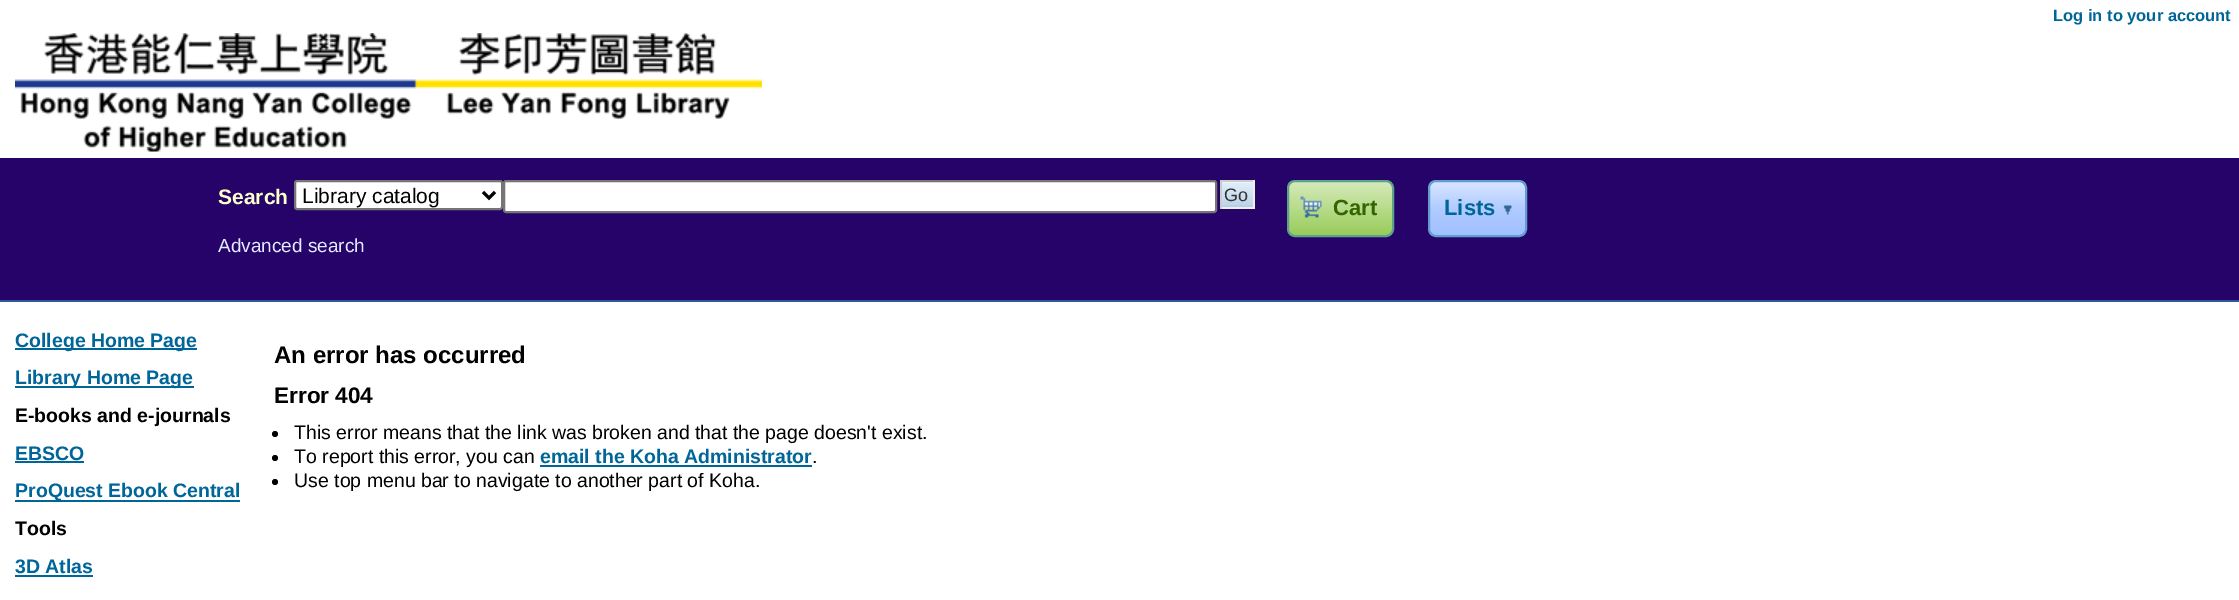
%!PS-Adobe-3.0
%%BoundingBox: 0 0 2239 600
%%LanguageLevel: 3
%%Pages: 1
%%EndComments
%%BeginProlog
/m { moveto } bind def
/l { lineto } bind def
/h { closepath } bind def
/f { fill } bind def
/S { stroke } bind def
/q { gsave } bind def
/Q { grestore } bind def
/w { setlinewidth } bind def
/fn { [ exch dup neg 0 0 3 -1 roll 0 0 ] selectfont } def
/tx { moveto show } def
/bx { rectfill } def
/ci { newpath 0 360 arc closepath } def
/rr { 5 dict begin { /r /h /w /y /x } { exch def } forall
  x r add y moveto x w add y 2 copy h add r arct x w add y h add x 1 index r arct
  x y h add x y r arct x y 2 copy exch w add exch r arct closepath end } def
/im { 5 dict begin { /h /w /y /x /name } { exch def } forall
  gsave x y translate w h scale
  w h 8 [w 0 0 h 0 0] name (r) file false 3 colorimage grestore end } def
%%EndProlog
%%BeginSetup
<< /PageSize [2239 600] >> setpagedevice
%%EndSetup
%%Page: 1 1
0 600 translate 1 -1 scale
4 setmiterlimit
1 setgray
0 0 2239 600 bx
/LiberationSans-Bold 16.5 fn
0 0.4 0.6 setrgbcolor
(Log in to your account) 2053 21 tx
(image0.raw) 15 33 747 119 im
0.145 0.012 0.408 setrgbcolor
0 158 2239 142 bx
0.2 0.333 0.6 setrgbcolor
0 300 2239 2 bx
/LiberationSans-Bold 21 fn
1 1 0.8 setrgbcolor
(Search) 218 204 tx
1 setgray
295 181 207 28 2 rr q f Q
0.463 setgray
2 w
S
0 setgray
3 w
483 192 m 489 198 l 495 192 l S
/LiberationSans-Regular 21 fn
(Library catalog) 302 203 tx
1 setgray
504 181 712 31 2 rr q f Q
0.463 setgray
2 w
S
q 1222 182 m 1253 182 l 1253 207 l 1222 207 l h clip newpath
<< /ShadingType 2 /ColorSpace /DeviceRGB /Coords [1237 182 1237 207] /Extend [true true] /Function << /FunctionType 3 /Domain [0 1] /Functions [<< /FunctionType 2 /Domain [0 1] /C0 [0.957 0.976 0.988] /C1 [0.875 0.933 0.98] /N 1 >> << /FunctionType 2 /Domain [0 1] /C0 [0.875 0.933 0.98] /C1 [0.749 0.835 0.918] /N 1 >> << /FunctionType 2 /Domain [0 1] /C0 [0.749 0.835 0.918] /C1 [0.631 0.769 0.886] /N 1 >> << /FunctionType 2 /Domain [0 1] /C0 [0.631 0.769 0.886] /C1 [0.722 0.816 0.902] /N 1 >>] /Bounds [0.04 0.93 0.97] /Encode [0 1 0 1 0 1 0 1] >> >> shfill Q
0.8 setgray
1220 180 34 2 bx
0.933 setgray
1253 180 2 29 bx
1220 207 34 2 bx
0.8 setgray
1220 180 2 29 bx
/LiberationSans-Regular 18 fn
0.2 setgray
(Go) 1224 201 tx
(image1.raw) 1288 181 104 55 im
0.369 0.635 0.549 setrgbcolor
1288 181 105 55 7 rr S
/LiberationSans-Bold 22 fn
0.2 0.4 0 setrgbcolor
(Cart) 1333 215 tx
(image2.raw) 1429 181 97 56 im
0.384 0.616 0.812 setrgbcolor
1429 181 97 55 7 rr S
0 0.4 0.6 setrgbcolor
(Lists) 1444 215 tx
/LiberationSans-Regular 19 fn
0.898 0.922 1 setrgbcolor
(Advanced search) 218 252 tx
0 0.4 0.6 setrgbcolor
15 348 182 2 bx
/LiberationSans-Bold 19.5 fn
(College Home Page) 15 347 tx
15 386 179 2 bx
(Library Home Page) 15 384 tx
0 setgray
(E-books and e-journals) 15 422 tx
0 0.4 0.6 setrgbcolor
(EBSCO) 15 460 tx
15 461 69 2 bx
15 500 225 2 bx
(ProQuest Ebook Central) 15 497 tx
0 setgray
(Tools) 15 535 tx
0 0.4 0.6 setrgbcolor
(3D Atlas) 15 573 tx
15 575 78 2 bx
/LiberationSans-Bold 24 fn
0 setgray
(An error has occurred) 274 363 tx
/LiberationSans-Bold 22.5 fn
(Error 404) 274 403 tx
275 434 3 ci f
/LiberationSans-Regular 19.5 fn
(This error means that the link was broken and that the page doesn't exist.) 294 439 tx
275 458 3 ci f
(To report this error, you can) 294 463 tx
/LiberationSans-Bold 19.5 fn
0 0.4 0.6 setrgbcolor
(email the Koha Administrator) 540 463 tx
540 465 272 2 bx
/LiberationSans-Regular 19.5 fn
0 setgray
(.) 812 463 tx
275 482 3 ci f
(Use top menu bar to navigate to another part of Koha.) 294 487 tx
showpage
%%EOF
